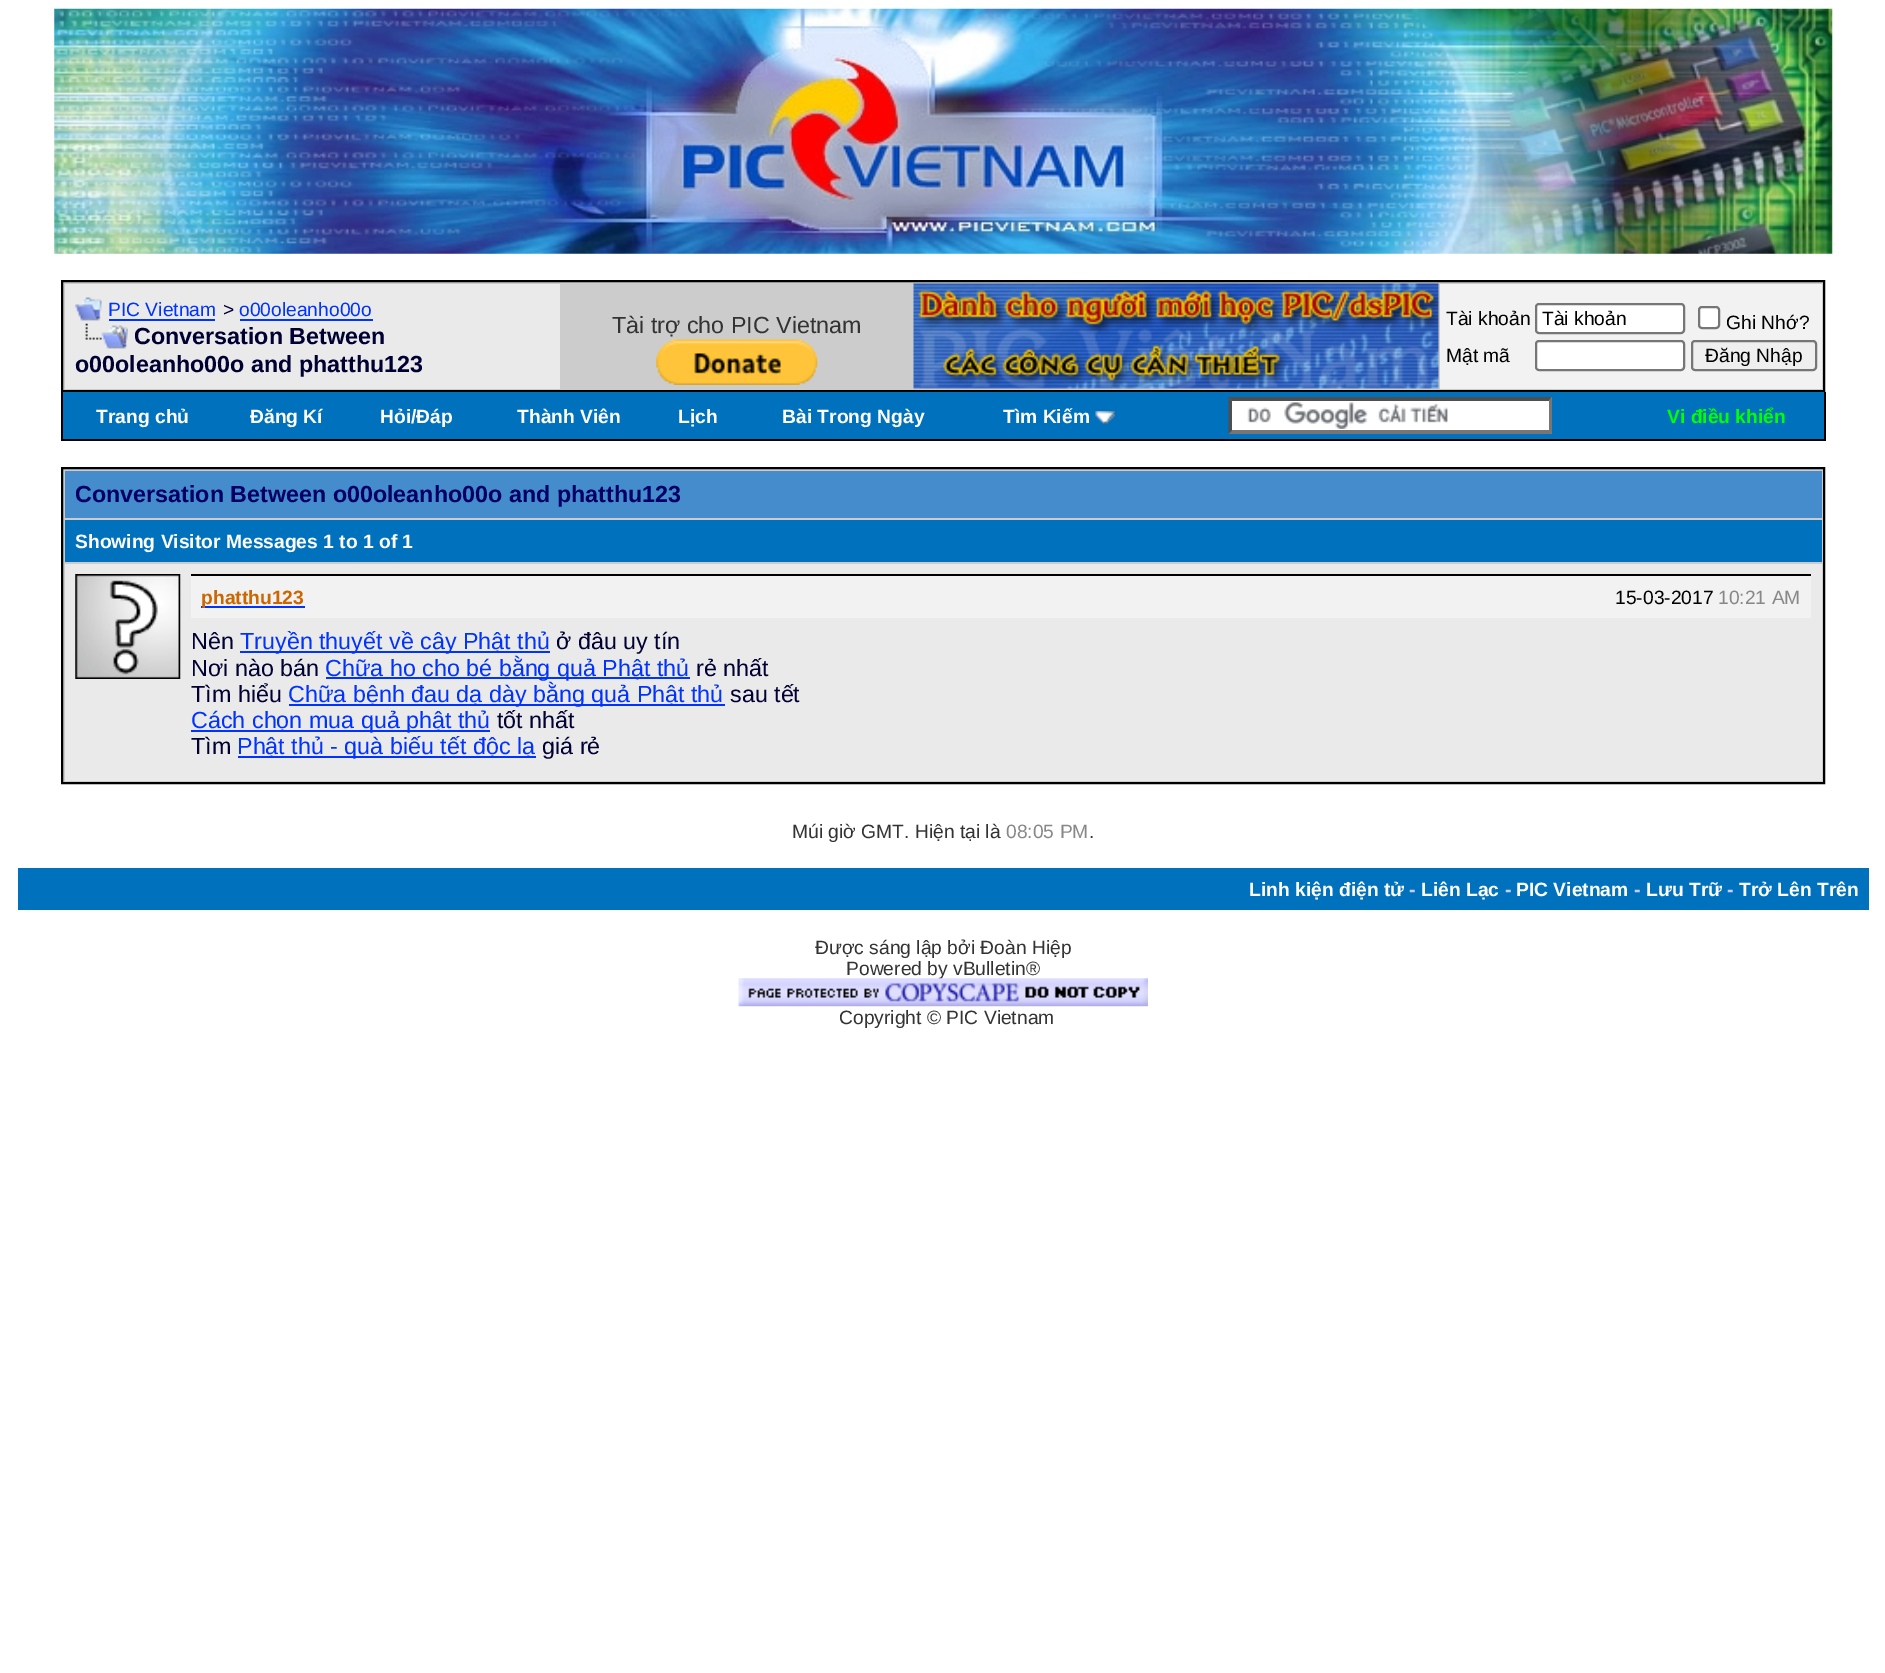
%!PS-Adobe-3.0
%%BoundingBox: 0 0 1885 1673
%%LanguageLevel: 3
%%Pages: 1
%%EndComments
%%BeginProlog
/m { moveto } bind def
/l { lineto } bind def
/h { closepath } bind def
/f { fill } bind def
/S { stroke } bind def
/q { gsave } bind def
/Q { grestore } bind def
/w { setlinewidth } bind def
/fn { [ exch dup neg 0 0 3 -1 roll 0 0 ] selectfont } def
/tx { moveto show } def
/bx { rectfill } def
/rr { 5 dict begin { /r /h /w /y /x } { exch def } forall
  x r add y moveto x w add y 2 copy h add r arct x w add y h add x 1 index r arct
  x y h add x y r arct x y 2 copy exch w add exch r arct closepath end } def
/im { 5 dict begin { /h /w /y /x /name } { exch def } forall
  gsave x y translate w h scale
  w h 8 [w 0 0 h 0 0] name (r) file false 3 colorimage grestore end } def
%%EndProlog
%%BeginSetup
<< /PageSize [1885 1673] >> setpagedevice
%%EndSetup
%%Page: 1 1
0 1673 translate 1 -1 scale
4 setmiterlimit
1 setgray
0 0 1885 1673 bx
(image0.raw) 54 8 1779 246 im
0.8 setgray
62 281 m 1824 281 l 1824 391 l 62 391 l h q f Q
0 setgray
2 w
S
0.918 setgray
65 284 495 105 bx
(image1.raw) 75 297 27 24 im
/LiberationSans-Regular 19.25 fn
0 0.2 1 setrgbcolor
(PIC Vietnam) 108 316 tx
109 319 106 2 bx
0 0 0.2 setrgbcolor
(>) 223 316 tx
0 0.2 1 setrgbcolor
(o00oleanho00o) 239 316 tx
240 319 133 2 bx
(image2.raw) 85 323 43 26 im
/LiberationSans-Bold 23.3 fn
0 0 0.2 setrgbcolor
(Conversation Between) 134 344 tx
(o00oleanho00o and phatthu123) 75 372 tx
/LiberationSans-Regular 23.3 fn
0.2 setgray
(Tài trợ cho PIC Vietnam) 612 333 tx
(image3.raw) 656 339 162 46 im
(image4.raw) 913 283 526 106 im
0.949 setgray
1440 284 382 105 bx
/LiberationSans-Regular 19.25 fn
0 setgray
(Tài khoản) 1446 325 tx
1 setgray
1536 304 148 29 3 rr q f Q
0.463 setgray
S
0 setgray
(Tài khoản) 1542 325 tx
1 setgray
1699 307 20 21 3 rr q f Q
0.463 setgray
S
0 setgray
(Ghi Nhớ?) 1726 329 tx
(Mật mã) 1446 362 tx
1 setgray
1536 341 148 29 3 rr q f Q
0.463 setgray
S
0.937 setgray
1692 341 124 29 3 rr q f Q
0.463 setgray
S
0 setgray
(Ðăng Nhập) 1705 362 tx
1824 392 2 49 bx
61 439 1764 2 bx
61 392 2 49 bx
0 0.443 0.737 setrgbcolor
63 392 1761 47 bx
/LiberationSans-Bold 19.25 fn
1 setgray
(Trang chủ) 96 423 tx
(Đăng Kí) 250 423 tx
(Hỏi/Ðáp) 380 423 tx
(Thành Viên) 517 423 tx
(Lịch) 678 423 tx
(Bài Trong Ngày) 782 423 tx
(Tìm Kiếm) 1003 423 tx
(image5.raw) 1095 411 20 13 im
1229 397 323 37 bx
(image6.raw) 1247 402 201 27 im
0.31 setgray
1228 397 m 1552 397 l 1549 401 l 1232 401 l h f
0.463 setgray
1552 397 m 1552 434 l 1549 430.5 l 1549 401 l h f
1552 434 m 1228 434 l 1232 430 l 1549 430 l h f
0.31 setgray
1228.5 434 m 1228.5 397 l 1232 401 l 1232 430.5 l h f
0 1 0 setrgbcolor
(Vi điều khiển) 1667 423 tx
0.8 setgray
62 468 m 1824 468 l 1824 783 l 62 783 l h q f Q
0 setgray
S
0.267 0.549 0.796 setrgbcolor
65 471 1757 47 bx
/LiberationSans-Bold 23.3 fn
0 0 0.4 setrgbcolor
(Conversation Between o00oleanho00o and phatthu123) 75 502 tx
0 0.443 0.737 setrgbcolor
65 520 1757 42 bx
/LiberationSans-Bold 19.25 fn
1 setgray
(Showing Visitor Messages 1 to 1 of 1) 75 548 tx
0.918 setgray
65 564 1757 217 bx
(image7.raw) 75 574 106 105 im
0 setgray
191 574 1620 2 bx
0.949 setgray
191 576 1620 42 bx
0 0.2 1 setrgbcolor
201 606 104 2 bx
0.8 0.4 0 setrgbcolor
(phatthu123) 201 604 tx
/LiberationSans-Regular 19.25 fn
0 setgray
(15-03-2017) 1615 604 tx
0.533 setgray
(10:21 AM) 1718 604 tx
/LiberationSans-Regular 23.3 fn
0 0 0.2 setrgbcolor
(Nên) 191 649 tx
0 0.2 1 setrgbcolor
240 651 310 2 bx
(Truyền thuyết về cây Phật thủ) 240 649 tx
0 0 0.2 setrgbcolor
(ở đâu uy tín) 556 649 tx
(Nơi nào bán) 191 676 tx
0 0.2 1 setrgbcolor
326 677 364 2 bx
(Chữa ho cho bé bằng quả Phật thủ) 325 676 tx
0 0 0.2 setrgbcolor
(rẻ nhất) 696 676 tx
(Tìm hiểu) 191 702 tx
0 0.2 1 setrgbcolor
289 704 436 2 bx
(Chữa bệnh đau dạ dày bằng quả Phật thủ) 288 702 tx
0 0 0.2 setrgbcolor
(sau tết) 730 702 tx
0 0.2 1 setrgbcolor
191 730 299 2 bx
(Cách chọn mua quả phật thủ) 191 728 tx
0 0 0.2 setrgbcolor
(tốt nhất) 497 728 tx
(Tìm) 191 754 tx
0 0.2 1 setrgbcolor
238 756 298 2 bx
(Phật thủ - quà biếu tết độc lạ) 237 754 tx
0 0 0.2 setrgbcolor
(giá rẻ) 542 754 tx
/LiberationSans-Regular 19.25 fn
0.2 setgray
(Múi giờ GMT. Hiện tại là) 792 838 tx
0.533 setgray
(08:05 PM) 1006 838 tx
0.2 setgray
(.) 1089 838 tx
0 0.443 0.737 setrgbcolor
18 868 1851 42 bx
/LiberationSans-Bold 19.25 fn
1 setgray
(Linh kiện điện tử) 1249 896 tx
0.8 0.8 1 setrgbcolor
(-) 1409 896 tx
1 setgray
(Liên Lạc) 1421 896 tx
0.8 0.8 1 setrgbcolor
(-) 1505 896 tx
1 setgray
(PIC Vietnam) 1516 896 tx
0.8 0.8 1 setrgbcolor
(-) 1634 896 tx
1 setgray
(Lưu Trữ) 1646 896 tx
0.8 0.8 1 setrgbcolor
(-) 1727 896 tx
1 setgray
(Trở Lên Trên) 1739 896 tx
/LiberationSans-Regular 19.25 fn
0.2 setgray
(Được sáng lập bởi Đoàn Hiệp) 815 954 tx
(Powered by vBulletin®) 846 975 tx
(image8.raw) 738 978 410 29 im
(Copyright © PIC Vietnam) 839 1024 tx
showpage
%%EOF
